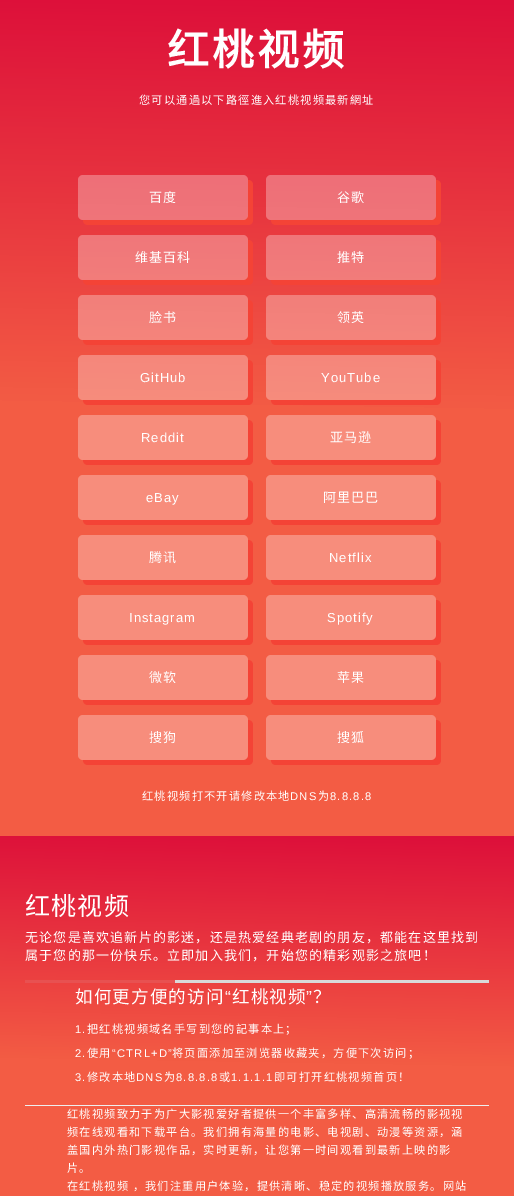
%!PS-Adobe-3.0
%%BoundingBox: 0 0 514 1196
%%LanguageLevel: 3
%%Pages: 1
%%EndComments
%%BeginProlog
/m { moveto } bind def
/l { lineto } bind def
/c { curveto } bind def
/h { closepath } bind def
/f { fill } bind def
/q { gsave } bind def
/Q { grestore } bind def
/fn { [ exch dup neg 0 0 3 -1 roll 0 0 ] selectfont } def
/bx { rectfill } def
/al { dup .setfillconstantalpha .setstrokeconstantalpha } def
/rr { 5 dict begin { /r /h /w /y /x } { exch def } forall
  x r add y moveto x w add y 2 copy h add r arct x w add y h add x 1 index r arct
  x y h add x y r arct x y 2 copy exch w add exch r arct closepath end } def
%%EndProlog
%%BeginSetup
<< /PageSize [514 1196] /PageUsesTransparency true >> setpagedevice
%%EndSetup
%%Page: 1 1
0 .pushpdf14devicefilter
0 1196 translate 1 -1 scale
4 setmiterlimit
1 setgray
0 0 514 1196 bx
q 0 0 m 514 0 l 514 836 l 0 836 l h clip newpath
<< /ShadingType 2 /ColorSpace /DeviceRGB /Coords [250 840 264 -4.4] /Extend [true true] /Function << /FunctionType 3 /Domain [0 1] /Functions [<< /FunctionType 2 /Domain [0 1] /C0 [0.953 0.365 0.267] /C1 [0.953 0.361 0.267] /N 1 >> << /FunctionType 2 /Domain [0 1] /C0 [0.953 0.361 0.267] /C1 [0.867 0.059 0.227] /N 1 >>] /Bounds [0.51] /Encode [0 1 0 1] >> >> shfill Q
/NotoSansCJKSC-Bold 42 fn
167 65 m 3 0 (红桃视频) ashow
/NotoSansCJKSC-Regular 11.2 fn
139 104 m 1.2 0 (您可以通過以下路徑進入红桃视频最新網址) ashow
0.957 0.263 0.212 setrgbcolor
83 220 m 83 223 85 225 88 225 c 248 225 l 251 225 253 223 253 220 c 253 185 l 253 182 251 180 248 180 c 248 215 l 248 218 246 220 243 220 c h f
0.3 al
1 setgray
78 175 170 45 5 rr f
/NotoSansCJKSC-Regular 13 fn
1 al
149 202 m 1 0 (百度) ashow
0.957 0.263 0.212 setrgbcolor
271 220 m 271 223 273 225 276 225 c 436 225 l 439 225 441 223 441 220 c 441 185 l 441 182 439 180 436 180 c 436 215 l 436 218 434 220 431 220 c h f
0.3 al
1 setgray
266 175 170 45 5 rr f
1 al
337 202 m 1 0 (谷歌) ashow
0.957 0.263 0.212 setrgbcolor
83 280 m 83 283 85 285 88 285 c 248 285 l 251 285 253 283 253 280 c 253 245 l 253 242 251 240 248 240 c 248 275 l 248 278 246 280 243 280 c h f
0.3 al
1 setgray
78 235 170 45 5 rr f
1 al
135 262 m 1 0 (维基百科) ashow
0.957 0.263 0.212 setrgbcolor
271 280 m 271 283 273 285 276 285 c 436 285 l 439 285 441 283 441 280 c 441 245 l 441 242 439 240 436 240 c 436 275 l 436 278 434 280 431 280 c h f
0.3 al
1 setgray
266 235 170 45 5 rr f
1 al
337 262 m 1 0 (推特) ashow
0.957 0.263 0.212 setrgbcolor
83 340 m 83 343 85 345 88 345 c 248 345 l 251 345 253 343 253 340 c 253 305 l 253 302 251 300 248 300 c 248 335 l 248 338 246 340 243 340 c h f
0.3 al
1 setgray
78 295 170 45 5 rr f
1 al
149 322 m 1 0 (脸书) ashow
0.957 0.263 0.212 setrgbcolor
271 340 m 271 343 273 345 276 345 c 436 345 l 439 345 441 343 441 340 c 441 305 l 441 302 439 300 436 300 c 436 335 l 436 338 434 340 431 340 c h f
0.3 al
1 setgray
266 295 170 45 5 rr f
1 al
337 322 m 1 0 (领英) ashow
0.957 0.263 0.212 setrgbcolor
83 400 m 83 403 85 405 88 405 c 248 405 l 251 405 253 403 253 400 c 253 365 l 253 362 251 360 248 360 c 248 395 l 248 398 246 400 243 400 c h f
0.3 al
1 setgray
78 355 170 45 5 rr f
/LiberationSans-Regular 13 fn
1 al
140 382 m 1 0 (GitHub) ashow
0.957 0.263 0.212 setrgbcolor
271 400 m 271 403 273 405 276 405 c 436 405 l 439 405 441 403 441 400 c 441 365 l 441 362 439 360 436 360 c 436 395 l 436 398 434 400 431 400 c h f
0.3 al
1 setgray
266 355 170 45 5 rr f
1 al
321 382 m 1 0 (YouTube) ashow
0.957 0.263 0.212 setrgbcolor
83 460 m 83 463 85 465 88 465 c 248 465 l 251 465 253 463 253 460 c 253 425 l 253 422 251 420 248 420 c 248 455 l 248 458 246 460 243 460 c h f
0.3 al
1 setgray
78 415 170 45 5 rr f
1 al
141 442 m 1 0 (Reddit) ashow
0.957 0.263 0.212 setrgbcolor
271 460 m 271 463 273 465 276 465 c 436 465 l 439 465 441 463 441 460 c 441 425 l 441 422 439 420 436 420 c 436 455 l 436 458 434 460 431 460 c h f
0.3 al
1 setgray
266 415 170 45 5 rr f
/NotoSansCJKSC-Regular 13 fn
1 al
330 442 m 1 0 (亚马逊) ashow
0.957 0.263 0.212 setrgbcolor
83 520 m 83 523 85 525 88 525 c 248 525 l 251 525 253 523 253 520 c 253 485 l 253 482 251 480 248 480 c 248 515 l 248 518 246 520 243 520 c h f
0.3 al
1 setgray
78 475 170 45 5 rr f
/LiberationSans-Regular 13 fn
1 al
146 502 m 1 0 (eBay) ashow
0.957 0.263 0.212 setrgbcolor
271 520 m 271 523 273 525 276 525 c 436 525 l 439 525 441 523 441 520 c 441 485 l 441 482 439 480 436 480 c 436 515 l 436 518 434 520 431 520 c h f
0.3 al
1 setgray
266 475 170 45 5 rr f
/NotoSansCJKSC-Regular 13 fn
1 al
323 502 m 1 0 (阿里巴巴) ashow
0.957 0.263 0.212 setrgbcolor
83 580 m 83 583 85 585 88 585 c 248 585 l 251 585 253 583 253 580 c 253 545 l 253 542 251 540 248 540 c 248 575 l 248 578 246 580 243 580 c h f
0.3 al
1 setgray
78 535 170 45 5 rr f
1 al
149 562 m 1 0 (腾讯) ashow
0.957 0.263 0.212 setrgbcolor
271 580 m 271 583 273 585 276 585 c 436 585 l 439 585 441 583 441 580 c 441 545 l 441 542 439 540 436 540 c 436 575 l 436 578 434 580 431 580 c h f
0.3 al
1 setgray
266 535 170 45 5 rr f
/LiberationSans-Regular 13 fn
1 al
329 562 m 1 0 (Netflix) ashow
0.957 0.263 0.212 setrgbcolor
83 640 m 83 643 85 645 88 645 c 248 645 l 251 645 253 643 253 640 c 253 605 l 253 602 251 600 248 600 c 248 635 l 248 638 246 640 243 640 c h f
0.3 al
1 setgray
78 595 170 45 5 rr f
1 al
129 622 m 1 0 (Instagram) ashow
0.957 0.263 0.212 setrgbcolor
271 640 m 271 643 273 645 276 645 c 436 645 l 439 645 441 643 441 640 c 441 605 l 441 602 439 600 436 600 c 436 635 l 436 638 434 640 431 640 c h f
0.3 al
1 setgray
266 595 170 45 5 rr f
1 al
327 622 m 1 0 (Spotify) ashow
0.957 0.263 0.212 setrgbcolor
83 700 m 83 703 85 705 88 705 c 248 705 l 251 705 253 703 253 700 c 253 665 l 253 662 251 660 248 660 c 248 695 l 248 698 246 700 243 700 c h f
0.3 al
1 setgray
78 655 170 45 5 rr f
/NotoSansCJKSC-Regular 13 fn
1 al
149 682 m 1 0 (微软) ashow
0.957 0.263 0.212 setrgbcolor
271 700 m 271 703 273 705 276 705 c 436 705 l 439 705 441 703 441 700 c 441 665 l 441 662 439 660 436 660 c 436 695 l 436 698 434 700 431 700 c h f
0.3 al
1 setgray
266 655 170 45 5 rr f
1 al
337 682 m 1 0 (苹果) ashow
0.957 0.263 0.212 setrgbcolor
83 760 m 83 763 85 765 88 765 c 248 765 l 251 765 253 763 253 760 c 253 725 l 253 722 251 720 248 720 c 248 755 l 248 758 246 760 243 760 c h f
0.3 al
1 setgray
78 715 170 45 5 rr f
1 al
149 742 m 1 0 (搜狗) ashow
0.957 0.263 0.212 setrgbcolor
271 760 m 271 763 273 765 276 765 c 436 765 l 439 765 441 763 441 760 c 441 725 l 441 722 439 720 436 720 c 436 755 l 436 758 434 760 431 760 c h f
0.3 al
1 setgray
266 715 170 45 5 rr f
1 al
337 742 m 1 0 (搜狐) ashow
/NotoSansCJKSC-Regular 11.2 fn
142 800 m 1.2 0 (红桃视频打不开请修改本地) ashow
/LiberationSans-Regular 11.2 fn
290 800 m 1.2 0 (DNS) ashow
/NotoSansCJKSC-Regular 11.2 fn
318 800 m 1.2 0 (为) ashow
/LiberationSans-Regular 11.2 fn
330 800 m 1.2 0 (8.8.8.8) ashow
q 0 836 m 514 836 l 514 1196 l 0 1196 l h clip newpath
<< /ShadingType 2 /ColorSpace /DeviceRGB /Coords [253 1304 261 832] /Extend [true true] /Function << /FunctionType 3 /Domain [0 1] /Functions [<< /FunctionType 2 /Domain [0 1] /C0 [0.953 0.365 0.267] /C1 [0.953 0.361 0.267] /N 1 >> << /FunctionType 2 /Domain [0 1] /C0 [0.953 0.361 0.267] /C1 [0.867 0.059 0.227] /N 1 >>] /Bounds [0.51] /Encode [0 1 0 1] >> >> shfill Q
0.851 setgray
175 980 314 3 bx
/NotoSansCJKSC-Regular 25 fn
1 setgray
25 915 m 1.2 0 (红桃视频) ashow
/NotoSansCJKSC-Regular 13 fn
25 942 m 1.2 0 (无论您是喜欢追新片的影迷，还是热爱经典老剧的朋友，都能在这里找到) ashow
25 960 m 1.2 0 (属于您的那一份快乐。立即加入我们，开始您的精彩观影之旅吧！) ashow
0.91 0.318 0.318 setrgbcolor
25 980 150 3 bx
/NotoSansCJKSC-Regular 17.5 fn
1 setgray
75 1003 m 1.2 0 (如何更方便的访问) ashow
/LiberationSans-Regular 17.5 fn
225 1003 m 1.2 0 (“) ashow
/NotoSansCJKSC-Regular 17.5 fn
232 1003 m 1.2 0 (红桃视频) ashow
/LiberationSans-Regular 17.5 fn
306 1003 m 1.2 0 (”) ashow
/NotoSansCJKSC-Regular 17.5 fn
313 1003 m 1.2 0 (？) ashow
/LiberationSans-Regular 11.2 fn
75 1033 m 1.2 0 (1.) ashow
/NotoSansCJKSC-Regular 11.2 fn
87 1033 m 1.2 0 (把红桃视频域名手写到您的記事本上；) ashow
/LiberationSans-Regular 11.2 fn
75 1057 m 1.2 0 (2.) ashow
/NotoSansCJKSC-Regular 11.2 fn
87 1057 m 1.2 0 (使用) ashow
/LiberationSans-Regular 11.2 fn
112 1057 m 1.2 0 (“CTRL+D”) ashow
/NotoSansCJKSC-Regular 11.2 fn
172 1057 m 1.2 0 (将页面添加至浏览器收藏夹，方便下次访问；) ashow
/LiberationSans-Regular 11.2 fn
75 1081 m 1.2 0 (3.) ashow
/NotoSansCJKSC-Regular 11.2 fn
87 1081 m 1.2 0 (修改本地) ashow
/LiberationSans-Regular 11.2 fn
136 1081 m 1.2 0 (DNS) ashow
/NotoSansCJKSC-Regular 11.2 fn
164 1081 m 1.2 0 (为) ashow
/LiberationSans-Regular 11.2 fn
176 1081 m 1.2 0 (8.8.8.8) ashow
/NotoSansCJKSC-Regular 11.2 fn
219 1081 m 1.2 0 (或) ashow
/LiberationSans-Regular 11.2 fn
231 1081 m 1.2 0 (1.1.1.1) ashow
/NotoSansCJKSC-Regular 11.2 fn
274 1081 m 1.2 0 (即可打开红桃视频首页！) ashow
0.933 setgray
25 1105 464 1 bx
1 setgray
67 1118 m 1.2 0 (红桃视频致力于为广大影视爱好者提供一个丰富多样、高清流畅的影视视) ashow
67 1136 m 1.2 0 (频在线观看和下载平台。我们拥有海量的电影、电视剧、动漫等资源，涵) ashow
67 1154 m 1.2 0 (盖国内外热门影视作品，实时更新，让您第一时间观看到最新上映的影) ashow
67 1172 m 1.2 0 (片。) ashow
67 1190 m 1.2 0 (在红桃视频 ，我们注重用户体验，提供清晰、稳定的视频播放服务。网站) ashow
.poppdf14devicefilter showpage
%%EOF
